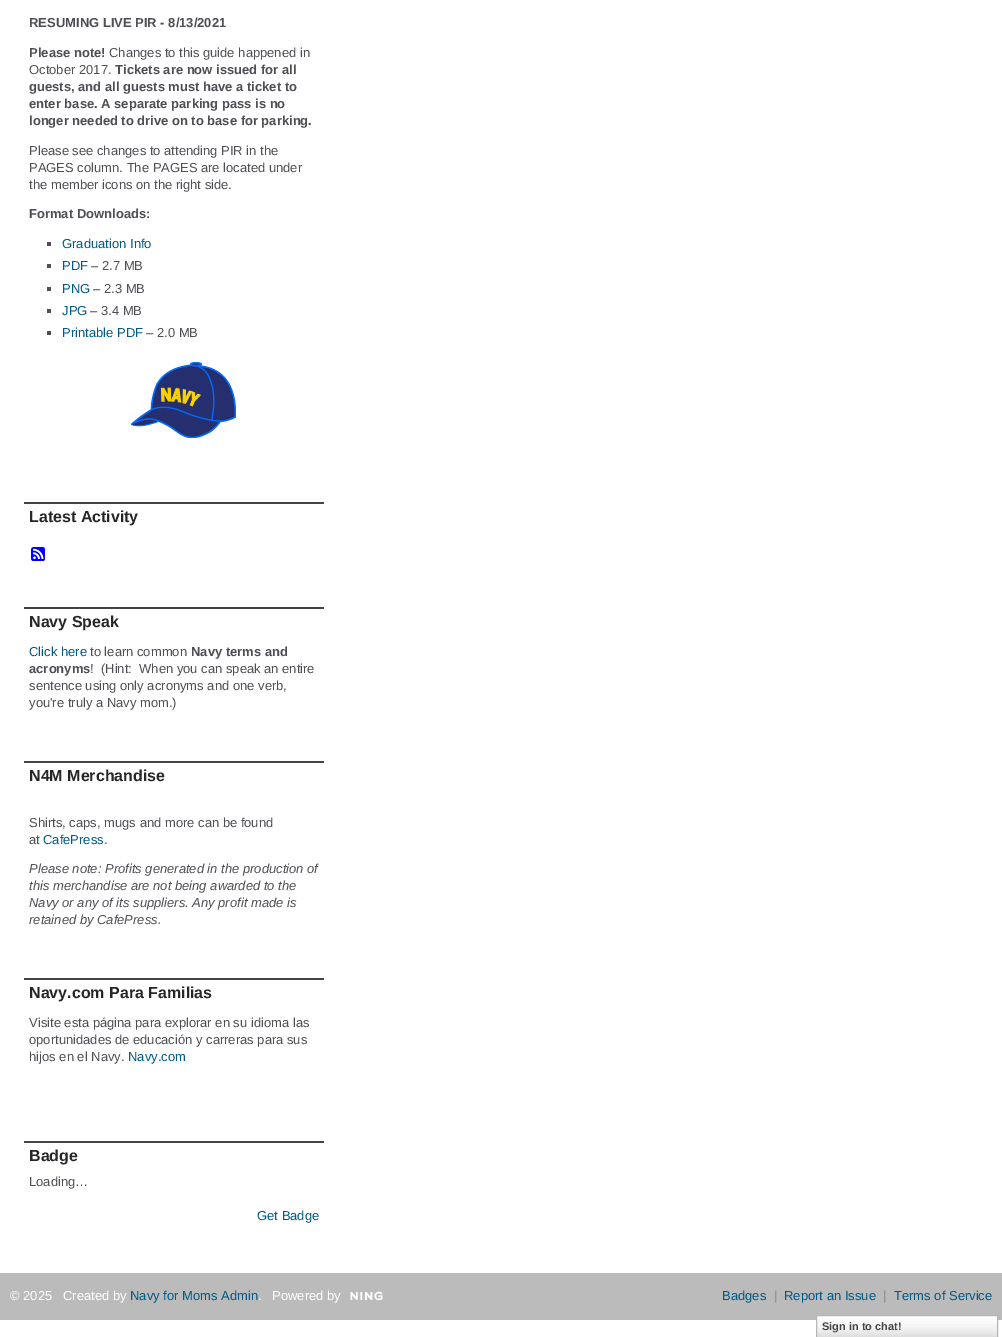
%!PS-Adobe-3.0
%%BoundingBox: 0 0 1002 1337
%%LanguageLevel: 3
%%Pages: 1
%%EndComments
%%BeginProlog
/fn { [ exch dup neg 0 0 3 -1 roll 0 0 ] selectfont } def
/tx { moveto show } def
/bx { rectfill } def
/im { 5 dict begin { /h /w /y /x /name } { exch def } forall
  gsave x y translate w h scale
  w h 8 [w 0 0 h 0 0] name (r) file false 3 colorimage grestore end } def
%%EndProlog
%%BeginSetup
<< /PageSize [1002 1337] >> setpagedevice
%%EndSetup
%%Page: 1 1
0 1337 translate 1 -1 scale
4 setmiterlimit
1 setgray
0 0 1002 1337 bx
/LiberationSans-Bold 13 fn
0.306 0.306 0.329 setrgbcolor
(RESUMING LIVE PIR - 8/13/2021) 29 27 tx
(Please note!) 29 57 tx
/LiberationSans-Regular 13 fn
(Changes to this guide happened in) 109 57 tx
(October 2017.) 29 74 tx
/LiberationSans-Bold 13 fn
(Tickets are now issued for all) 115 74 tx
(guests, and all guests must have a ticket to) 29 91 tx
(enter base. A separate parking pass is no) 29 108 tx
(longer needed to drive on to base for parking.) 29 125 tx
/LiberationSans-Regular 13 fn
(Please see changes to attending PIR in the) 29 155 tx
(PAGES column. The PAGES are located under) 29 172 tx
(the member icons on the right side.) 29 189 tx
/LiberationSans-Bold 13 fn
(Format Downloads:) 29 218 tx
47 242 4 4 bx
/LiberationSans-Regular 13 fn
0 0.353 0.518 setrgbcolor
(Graduation Info) 62 248 tx
0.306 0.306 0.329 setrgbcolor
47 264 4 4 bx
0 0.353 0.518 setrgbcolor
(PDF) 62 270 tx
0.306 0.306 0.329 setrgbcolor
(– 2.7 MB) 91 270 tx
47 287 4 4 bx
0 0.353 0.518 setrgbcolor
(PNG) 62 293 tx
0.306 0.306 0.329 setrgbcolor
(– 2.3 MB) 93 293 tx
47 309 4 4 bx
0 0.353 0.518 setrgbcolor
(JPG) 62 315 tx
0.306 0.306 0.329 setrgbcolor
(– 3.4 MB) 90 315 tx
47 331 4 4 bx
0 0.353 0.518 setrgbcolor
(Printable PDF) 62 337 tx
0.306 0.306 0.329 setrgbcolor
(– 2.0 MB) 146 337 tx
(image0.raw) 131 362 105 77 im
0.267 setgray
24 502 300 2 bx
/LiberationSans-Bold 16 fn
0.149 setgray
(Latest Activity) 29 522 tx
(image1.raw) 31 547 14 14 im
0.267 setgray
24 607 300 2 bx
0.149 setgray
(Navy Speak) 29 627 tx
/LiberationSans-Regular 13 fn
0 0.353 0.518 setrgbcolor
(Click here) 29 656 tx
0.306 0.306 0.329 setrgbcolor
(to learn common) 90 656 tx
/LiberationSans-Bold 13 fn
(Navy terms and) 191 656 tx
(acronyms) 29 673 tx
/LiberationSans-Regular 13 fn
(!  \(Hint:  When you can speak an entire) 90 673 tx
(sentence using only acronyms and one verb,) 29 690 tx
(you're truly a Navy mom.\)) 29 707 tx
0.267 setgray
24 761 300 2 bx
/LiberationSans-Bold 16 fn
0.149 setgray
(N4M Merchandise) 29 781 tx
/LiberationSans-Regular 13 fn
0.306 0.306 0.329 setrgbcolor
(Shirts, caps, mugs and more can be found) 29 827 tx
(at) 29 844 tx
0 0.353 0.518 setrgbcolor
(CafePress) 43 844 tx
0.306 0.306 0.329 setrgbcolor
(.) 104 844 tx
/LiberationSans-Italic 13 fn
(Please note: Profits generated in the production of) 29 873 tx
(this merchandise are not being awarded to the) 29 890 tx
(Navy or any of its suppliers. Any profit made is) 29 907 tx
(retained by CafePress.) 29 924 tx
0.267 setgray
24 978 300 2 bx
/LiberationSans-Bold 16 fn
0.149 setgray
(Navy.com Para Familias) 29 998 tx
/LiberationSans-Regular 13 fn
0.306 0.306 0.329 setrgbcolor
(Visite esta página para explorar en su idioma las) 29 1027 tx
(oportunidades de educación y carreras para sus) 29 1044 tx
(hijos en el Navy.) 29 1061 tx
0 0.353 0.518 setrgbcolor
(Navy.com) 128 1061 tx
0.267 setgray
24 1141 300 2 bx
/LiberationSans-Bold 16 fn
0.149 setgray
(Badge) 29 1161 tx
/LiberationSans-Regular 13 fn
0.306 0.306 0.329 setrgbcolor
(Loading…) 29 1186 tx
0 0.353 0.518 setrgbcolor
(Get Badge) 257 1220 tx
0.733 setgray
0 1273 1002 47 bx
1 setgray
(© 2025) 10 1300 tx
(Created by) 63 1300 tx
0 0.353 0.518 setrgbcolor
(Navy for Moms Admin) 130 1300 tx
1 setgray
(.) 258 1300 tx
(Powered by) 272 1300 tx
(image2.raw) 350 1291 33 10 im
0 0.353 0.518 setrgbcolor
(Badges) 722 1300 tx
0.533 setgray
(|) 774 1300 tx
0 0.353 0.518 setrgbcolor
(Report an Issue) 784 1300 tx
0.533 setgray
(|) 883 1300 tx
0 0.353 0.518 setrgbcolor
(Terms of Service) 894 1300 tx
(image3.raw) 817 1316 180 21 im
0.718 setgray
816.5 1315.5 181 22 rectstroke
/LiberationSans-Bold 11 fn
0.271 setgray
(Sign in to chat!) 822 1330 tx
showpage
%%EOF
